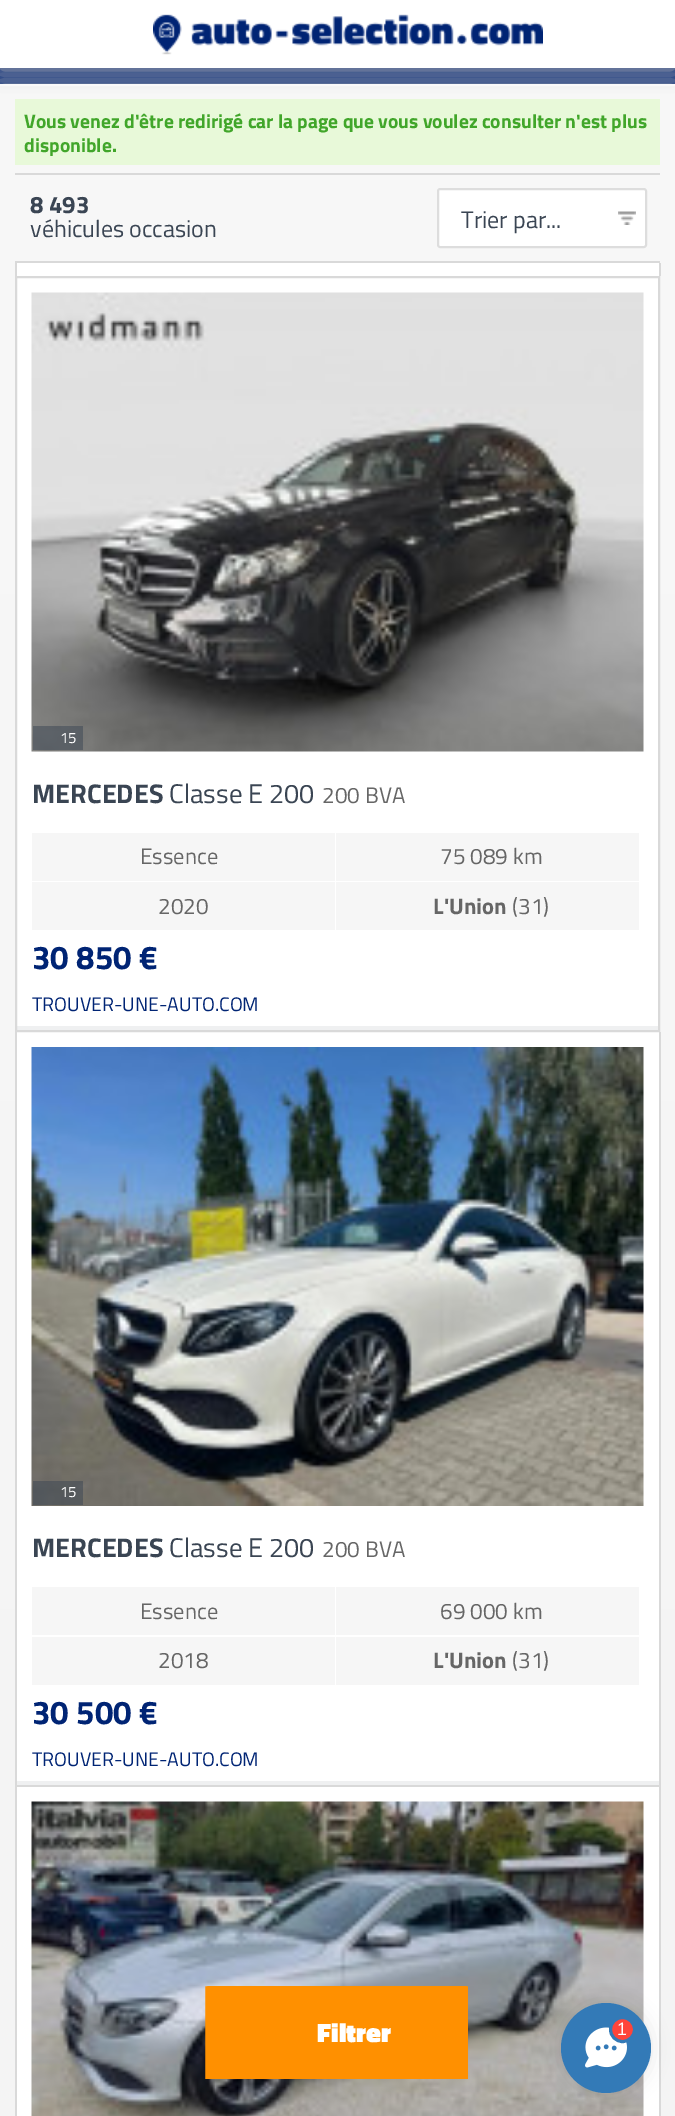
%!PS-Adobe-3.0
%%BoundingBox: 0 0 675 2116
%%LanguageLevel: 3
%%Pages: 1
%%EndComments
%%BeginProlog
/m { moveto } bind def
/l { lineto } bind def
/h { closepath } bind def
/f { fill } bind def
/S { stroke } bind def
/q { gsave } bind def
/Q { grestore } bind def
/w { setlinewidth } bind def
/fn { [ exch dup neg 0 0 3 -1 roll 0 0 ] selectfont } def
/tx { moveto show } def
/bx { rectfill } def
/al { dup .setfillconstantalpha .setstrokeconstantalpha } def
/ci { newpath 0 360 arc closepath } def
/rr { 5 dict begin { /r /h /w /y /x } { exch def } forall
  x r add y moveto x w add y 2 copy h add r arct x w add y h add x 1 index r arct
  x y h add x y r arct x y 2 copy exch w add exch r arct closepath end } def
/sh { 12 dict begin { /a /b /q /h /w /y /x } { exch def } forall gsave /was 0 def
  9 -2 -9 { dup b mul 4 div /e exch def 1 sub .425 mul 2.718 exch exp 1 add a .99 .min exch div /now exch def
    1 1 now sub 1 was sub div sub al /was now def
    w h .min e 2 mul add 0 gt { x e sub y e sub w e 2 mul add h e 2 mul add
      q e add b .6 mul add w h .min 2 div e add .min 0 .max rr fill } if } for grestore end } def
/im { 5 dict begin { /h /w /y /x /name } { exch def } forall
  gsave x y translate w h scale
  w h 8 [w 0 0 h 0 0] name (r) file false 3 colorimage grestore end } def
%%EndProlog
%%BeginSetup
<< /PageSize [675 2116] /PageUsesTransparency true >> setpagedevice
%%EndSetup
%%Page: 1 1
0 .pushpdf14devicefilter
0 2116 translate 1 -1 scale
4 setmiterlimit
0 0.141 0.455 setrgbcolor
0 0 675 2116 bx
0.733 setgray
0 86 675 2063 0 11 1 sh
q 0 86 m 675 86 l 675 2116 l 0 2116 l h clip newpath
<< /ShadingType 2 /ColorSpace /DeviceRGB /Coords [338 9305 338 84] /Extend [true true] /Function << /FunctionType 2 /Domain [0 1] /C0 [0.894 0.894 0.894] /C1 [0.973 0.973 0.973] /N 1 >> >> shfill Q
1 setgray
0 84 675 2 bx
0.91 0.976 0.851 setrgbcolor
15 99 645 66 bx
0.733 setgray
0 2 675 67 0 11 1 sh
1 setgray
0 0 675 68 bx
(image0.raw) 153 14 390 41 im
/TitilliumWeb-Bold 19.5 fn
0.255 0.651 0.165 setrgbcolor
(Vous venez d'être redirigé car la page que vous voulez consulter n'est plus) 24 128 tx
(disponible.) 24 152 tx
1 setgray
17 263 642 1853 bx
0.851 setgray
15 173 645 2 bx
15 261 645 2 bx
/TitilliumWeb-Bold 24 fn
0.227 0.271 0.325 setrgbcolor
(8 493) 30 213 tx
/TitilliumWeb-Regular 24 fn
(véhicules occasion) 30 237 tx
1 setgray
437 188 210 60 3 rr f
(image1.raw) 618 211 18 14 im
0.867 setgray
2 w
438 189 208 58 2 rr S
0.227 0.271 0.325 setrgbcolor
(Trier par...) 461 228 tx
0.851 setgray
659 263 2 13 bx
15 263 2 13 bx
0.937 0.941 0.945 setrgbcolor
17 1026 642 4 bx
0.851 setgray
16 277 643 754 rectstroke
(image2.raw) 31 292 613 460 im
0.5 al
0.227 0.271 0.325 setrgbcolor
33 726 50 24 bx
/TitilliumWeb-Regular 15 fn
1 al
1 setgray
(15) 60 743 tx
/TitilliumWeb-Bold 27 fn
0.227 0.271 0.325 setrgbcolor
(MERCEDES) 32 803 tx
/TitilliumWeb-Regular 27 fn
(Classe E 200) 169 803 tx
/TitilliumWeb-Regular 22.5 fn
0.4 setgray
(200 BVA) 322 803 tx
0.965 setgray
32 833 303 48 bx
0.4 setgray
(Essence) 140 864 tx
0.965 setgray
336 833 303 48 bx
0.4 setgray
(75 089 km) 440 864 tx
0.965 setgray
32 882 303 48 bx
0.4 setgray
(2020) 158 914 tx
0.965 setgray
336 882 303 48 bx
/TitilliumWeb-Bold 22.5 fn
0.4 setgray
(L'Union) 433 914 tx
/TitilliumWeb-Regular 22.5 fn
(\(31\)) 512 914 tx
/TitilliumWeb-Bold 33 fn
0 0.141 0.455 setrgbcolor
(30 850 €) 32 969 tx
/TitilliumWeb-Regular 19.5 fn
(TROUVER-UNE-AUTO.COM) 32 1011 tx
0.937 0.941 0.945 setrgbcolor
17 1781 642 4 bx
0.851 setgray
659 1032 2 1084 bx
15 1785 645 2 bx
15 1032 2 1084 bx
(image3.raw) 31 1047 613 459 im
0.5 al
0.227 0.271 0.325 setrgbcolor
33 1481 50 24 bx
/TitilliumWeb-Regular 15 fn
1 al
1 setgray
(15) 60 1497 tx
/TitilliumWeb-Bold 27 fn
0.227 0.271 0.325 setrgbcolor
(MERCEDES) 32 1557 tx
/TitilliumWeb-Regular 27 fn
(Classe E 200) 169 1557 tx
/TitilliumWeb-Regular 22.5 fn
0.4 setgray
(200 BVA) 322 1557 tx
0.965 setgray
32 1587 303 48 bx
0.4 setgray
(Essence) 140 1619 tx
0.965 setgray
336 1587 303 48 bx
0.4 setgray
(69 000 km) 440 1619 tx
0.965 setgray
32 1637 303 48 bx
0.4 setgray
(2018) 158 1668 tx
0.965 setgray
336 1637 303 48 bx
/TitilliumWeb-Bold 22.5 fn
0.4 setgray
(L'Union) 433 1668 tx
/TitilliumWeb-Regular 22.5 fn
(\(31\)) 512 1668 tx
/TitilliumWeb-Bold 33 fn
0 0.141 0.455 setrgbcolor
(30 500 €) 32 1724 tx
/TitilliumWeb-Regular 19.5 fn
(TROUVER-UNE-AUTO.COM) 32 1766 tx
(image4.raw) 31 1801 613 315 im
1 0.565 0 setrgbcolor
206 1986 262 93 3 rr f
7.5 w
209 1990 m 464 1990 l 464 2075 l 209 2075 l h S
/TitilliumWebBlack-Black 27 fn
1 setgray
(Filtrer) 317 2042 tx
0 setgray
561 2003 90 90 45 9 0.1 sh
0.2 0.478 0.718 setrgbcolor
606 2048 45 ci f
(image5.raw) 585 2027 42 41 im
1 0.267 0.227 setrgbcolor
622.5 2029.5 12 ci q f Q
0.2 0.478 0.718 setrgbcolor
3 w
S
/LiberationSans-Regular 18 fn
1 setgray
(1) 617 2035 tx
.poppdf14devicefilter showpage
%%EOF
